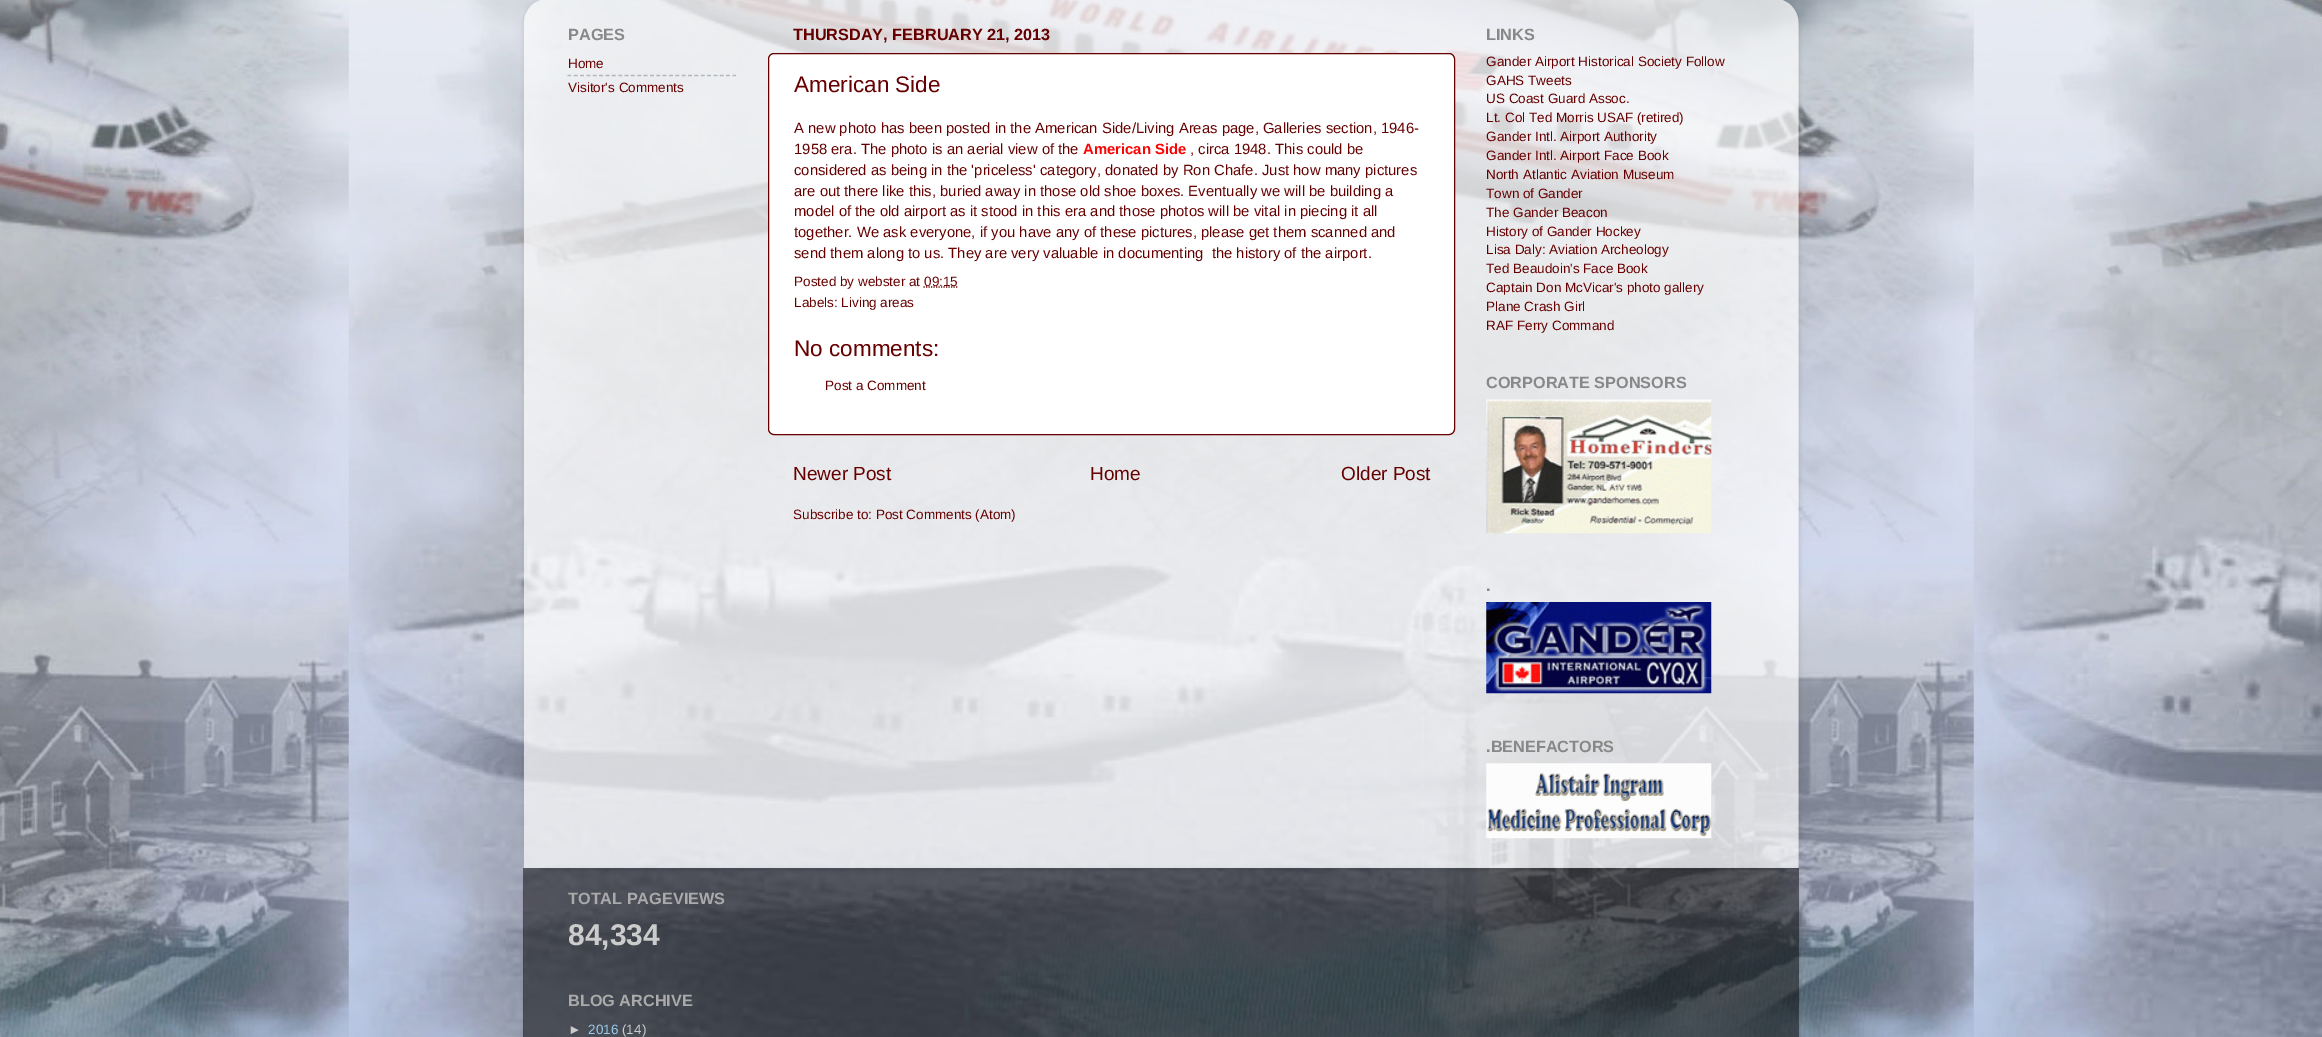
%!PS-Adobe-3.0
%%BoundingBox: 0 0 2322 1037
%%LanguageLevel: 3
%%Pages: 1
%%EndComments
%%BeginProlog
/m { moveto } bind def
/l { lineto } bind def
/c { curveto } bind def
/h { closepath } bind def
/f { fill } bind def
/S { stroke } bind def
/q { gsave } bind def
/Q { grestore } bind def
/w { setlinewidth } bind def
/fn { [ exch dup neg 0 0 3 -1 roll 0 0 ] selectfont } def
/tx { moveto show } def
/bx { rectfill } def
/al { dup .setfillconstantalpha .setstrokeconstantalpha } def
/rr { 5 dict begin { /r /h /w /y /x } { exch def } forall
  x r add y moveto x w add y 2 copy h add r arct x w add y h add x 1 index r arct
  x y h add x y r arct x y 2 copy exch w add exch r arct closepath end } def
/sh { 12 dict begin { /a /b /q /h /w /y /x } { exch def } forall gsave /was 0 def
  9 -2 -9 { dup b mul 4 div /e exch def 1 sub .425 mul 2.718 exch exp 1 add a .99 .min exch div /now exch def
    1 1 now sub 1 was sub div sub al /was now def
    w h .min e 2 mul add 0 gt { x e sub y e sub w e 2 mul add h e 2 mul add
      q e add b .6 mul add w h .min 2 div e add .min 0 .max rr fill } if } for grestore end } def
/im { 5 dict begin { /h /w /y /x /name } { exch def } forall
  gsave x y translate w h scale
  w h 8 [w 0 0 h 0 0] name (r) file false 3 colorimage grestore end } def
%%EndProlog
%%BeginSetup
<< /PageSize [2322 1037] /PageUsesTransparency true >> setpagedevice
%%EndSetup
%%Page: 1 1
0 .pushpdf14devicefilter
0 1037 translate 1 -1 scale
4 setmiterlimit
1 setgray
0 0 2322 1037 bx
(image0.raw) 0 0 2322 1037 im
q
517 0 m 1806 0 l 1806 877 l 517 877 l h 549 -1 m 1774 -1 l 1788 -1 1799 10 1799 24 c 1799 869 l 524 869 l 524 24 l 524 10 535 -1 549 -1 c h eoclip newpath
0 setgray
524 0 1275 870 25 2 0.15 sh
Q
(image1.raw) 523 0 1276 869 im
/LiberationSans-Bold 16.25 fn
0.533 setgray
(PAGES) 568 40 tx
/LiberationSans-Regular 13.5 fn
0.4 0 0 setrgbcolor
(Home) 568 68 tx
0.5 al
0.502 setgray
1.2 w
[3.75 2.6] 0 setdash
567.5 75.5 m 736 75.5 l S
1 al
0.4 0 0 setrgbcolor
(Visitor's Comments) 568 92 tx
/LiberationSans-Bold 16.25 fn
(THURSDAY, FEBRUARY 21, 2013) 793 40 tx
1 setgray
768.5 53.5 686 381 5.5 rr q f Q
0.4 0 0 setrgbcolor
1 w
[] 0 setdash
S
/LiberationSans-Regular 22.5 fn
(American Side) 794 92 tx
/LiberationSans-Regular 14.85 fn
(A new photo has been posted in the American Side/Living Areas page, Galleries section, 1946-) 794 133 tx
(1958 era. The photo is an aerial view of the) 794 154 tx
/LiberationSans-Bold 14.85 fn
1 0 0 setrgbcolor
(American Side) 1083 154 tx
/LiberationSans-Regular 14.85 fn
0.4 0 0 setrgbcolor
(, circa 1948. This could be) 1190 154 tx
(considered as being in the 'priceless' category, donated by Ron Chafe. Just how many pictures) 794 175 tx
(are out there like this, buried away in those old shoe boxes. Eventually we will be building a) 794 196 tx
(model of the old airport as it stood in this era and those photos will be vital in piecing it all) 794 216 tx
(together. We ask everyone, if you have any of these pictures, please get them scanned and) 794 237 tx
(send them along to us. They are very valuable in documenting  the history of the airport.) 794 258 tx
/LiberationSans-Regular 13.5 fn
(Posted by webster at) 794 286 tx
1.2 w
[1.25 1.25] 0 setdash
923.5 287 m 957.5 287 l S
(09:15) 924 286 tx
(Labels: Living areas) 794 307 tx
/LiberationSans-Regular 22.5 fn
(No comments:) 794 356 tx
/LiberationSans-Regular 13.5 fn
(Post a Comment) 825 390 tx
/LiberationSans-Regular 19 fn
(Newer Post) 793 480 tx
(Home) 1090 480 tx
(Older Post) 1341 480 tx
/LiberationSans-Regular 13.5 fn
(Subscribe to: Post Comments \(Atom\)) 793 519 tx
/LiberationSans-Bold 16.25 fn
0.533 setgray
(LINKS) 1486 40 tx
/LiberationSans-Regular 13.5 fn
0.4 0 0 setrgbcolor
(Gander Airport Historical Society Follow) 1486 66 tx
(GAHS Tweets) 1486 85 tx
(US Coast Guard Assoc.) 1486 103 tx
(Lt. Col Ted Morris USAF \(retired\)) 1486 122 tx
(Gander Intl. Airport Authority) 1486 141 tx
(Gander Intl. Airport Face Book) 1486 160 tx
(North Atlantic Aviation Museum) 1486 179 tx
(Town of Gander) 1486 198 tx
(The Gander Beacon) 1486 217 tx
(History of Gander Hockey) 1486 236 tx
(Lisa Daly: Aviation Archeology) 1486 254 tx
(Ted Beaudoin's Face Book) 1486 273 tx
(Captain Don McVicar's photo gallery) 1486 292 tx
(Plane Crash Girl) 1486 311 tx
(RAF Ferry Command) 1486 330 tx
/LiberationSans-Bold 16.25 fn
0.533 setgray
(CORPORATE SPONSORS) 1486 388 tx
(image2.raw) 1486 399 226 135 im
(.) 1486 591 tx
(image3.raw) 1486 602 226 92 im
(.BENEFACTORS) 1486 752 tx
(image4.raw) 1486 763 226 76 im
q
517 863 m 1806 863 l 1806 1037 l 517 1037 l h 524 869 m 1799 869 l 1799 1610 l 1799 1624 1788 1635 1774 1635 c 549 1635 l 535 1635 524 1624 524 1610 c h eoclip newpath
0 setgray
524 870 1275 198 25 2 0.15 sh
Q
0.5 al
0 setgray
523 868 1276 169 bx
1 al
0.667 setgray
(TOTAL PAGEVIEWS) 568 904 tx
/LiberationSans-Bold 30 fn
0.8 setgray
(84,334) 568 945 tx
/LiberationSans-Bold 16.25 fn
0.667 setgray
(BLOG ARCHIVE) 568 1006 tx
/LiberationSans-Regular 13.5 fn
0.8 setgray
(►) 568 1034 tx
0.6 0.8 0.933 setrgbcolor
(2016) 588 1034 tx
0.8 setgray
(\(14\)) 622 1034 tx
.poppdf14devicefilter showpage
%%EOF
